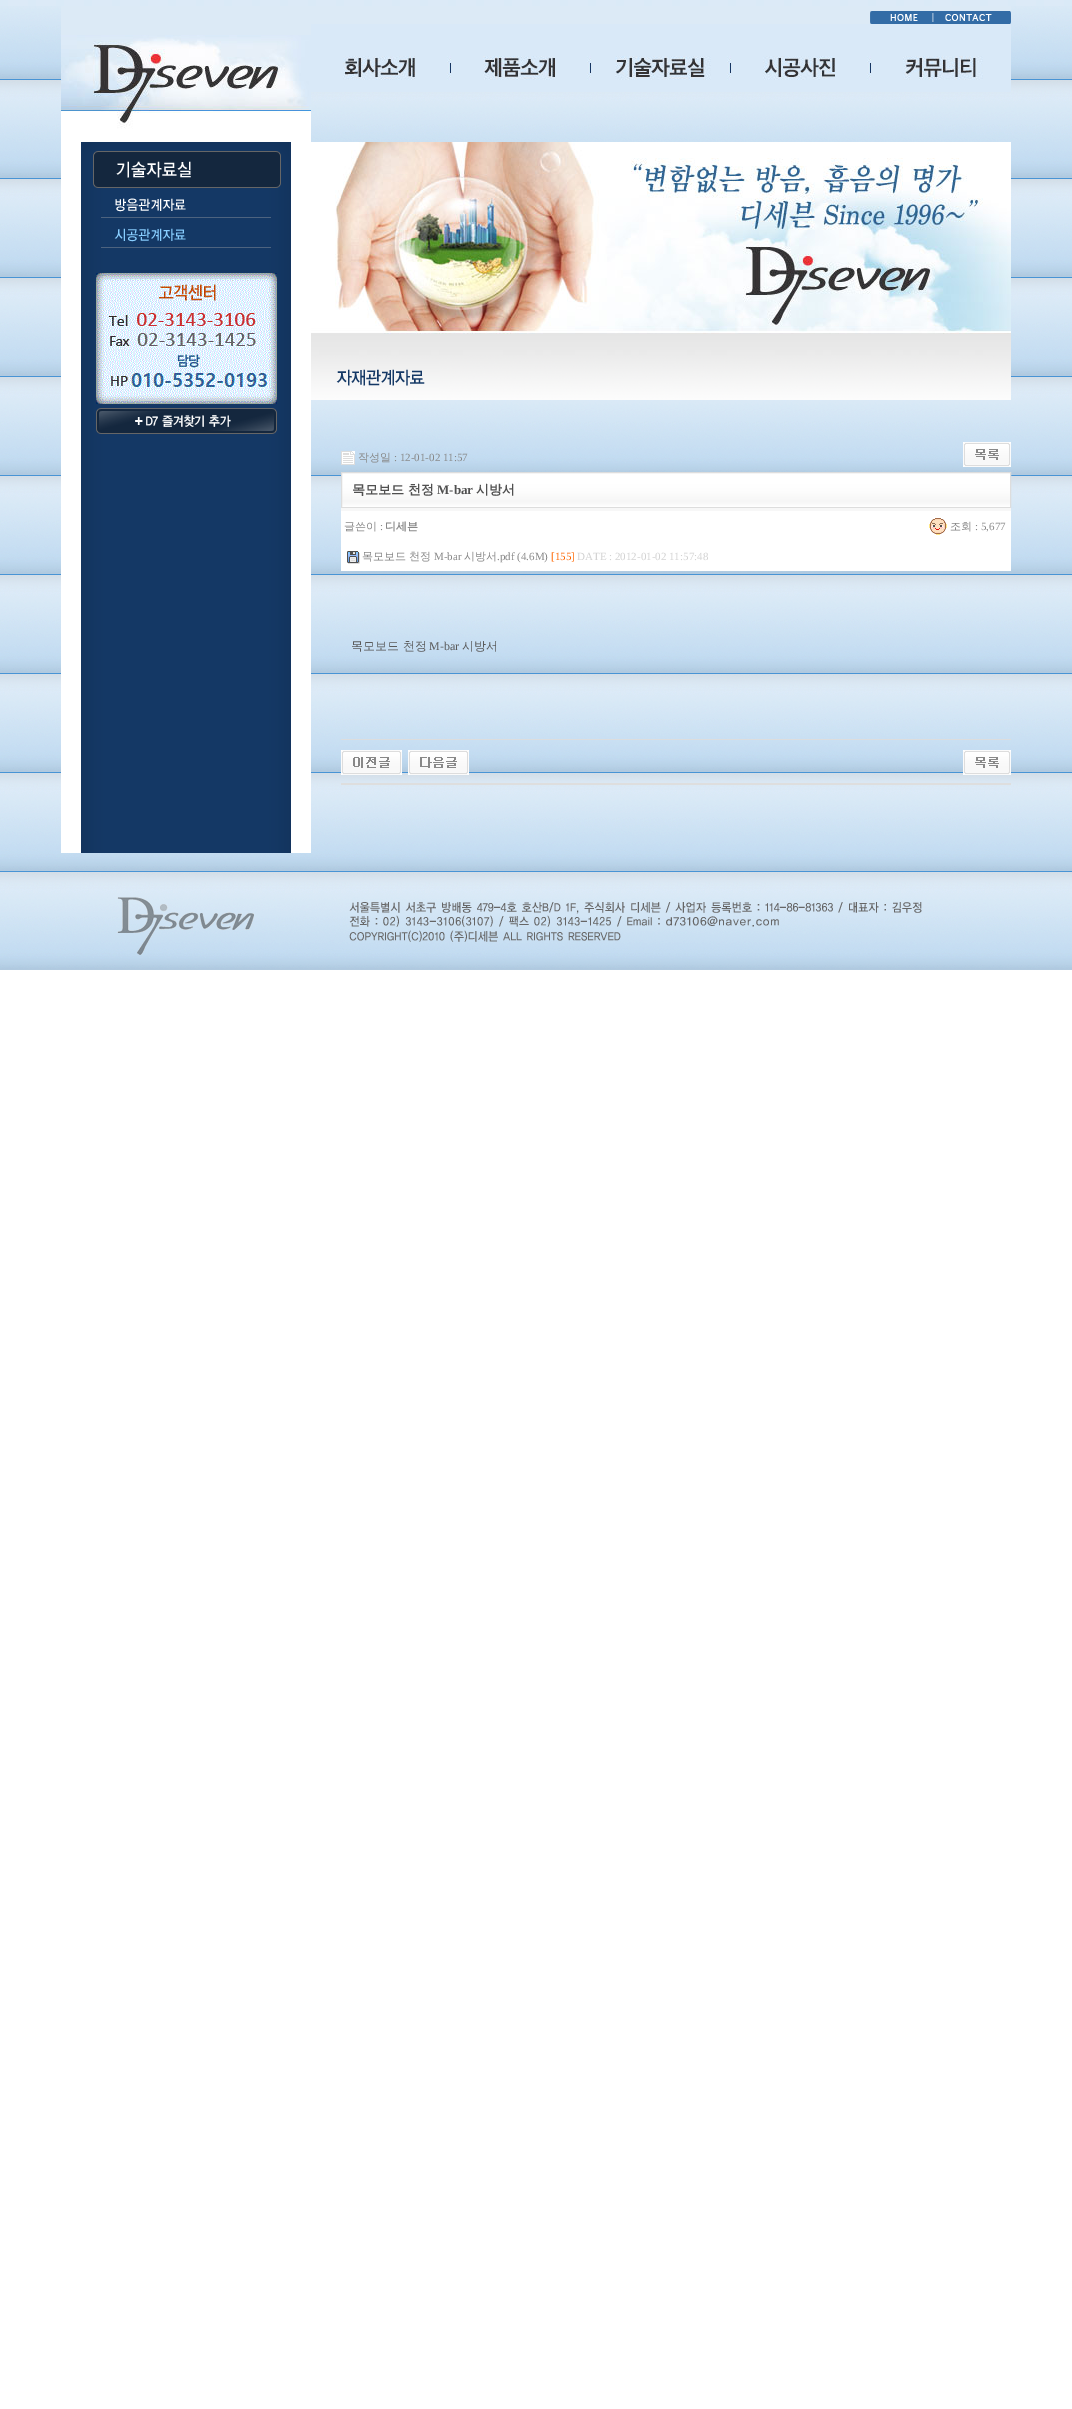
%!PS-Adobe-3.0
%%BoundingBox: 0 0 1072 2409
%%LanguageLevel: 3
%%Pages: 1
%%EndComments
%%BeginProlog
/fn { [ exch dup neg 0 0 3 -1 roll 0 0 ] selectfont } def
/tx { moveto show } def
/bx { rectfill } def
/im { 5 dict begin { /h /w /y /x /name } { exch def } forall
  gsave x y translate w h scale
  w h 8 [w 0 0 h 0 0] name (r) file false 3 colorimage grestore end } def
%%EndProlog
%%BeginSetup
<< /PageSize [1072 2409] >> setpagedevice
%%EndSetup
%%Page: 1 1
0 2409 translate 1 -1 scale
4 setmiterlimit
1 setgray
0 0 1072 2409 bx
(image0.raw) 0 0 1072 6 im
(image1.raw) 0 6 1072 964 im
0.863 0.918 0.965 setrgbcolor
61 6 250 29 bx
(image2.raw) 61 35 250 107 im
311 6 700 18 bx
(image3.raw) 870 11 64 13 im
(image4.raw) 934 11 77 13 im
(image5.raw) 311 24 140 68 im
(image6.raw) 451 24 140 68 im
(image7.raw) 591 24 140 68 im
(image8.raw) 731 24 140 68 im
(image9.raw) 871 24 140 68 im
(image10.raw) 61 142 250 711 im
(image11.raw) 83 142 206 46 im
(image12.raw) 101 198 170 20 im
(image13.raw) 101 228 170 20 im
(image14.raw) 96 273 181 131 im
(image15.raw) 96 408 181 26 im
(image16.raw) 311 142 700 213 im
(image17.raw) 311 355 700 45 im
(image18.raw) 341 451 14 14 im
/WenQuanYiZenHei-Medium 11 fn
0.533 setgray
(작성일) 358 461 tx
/LiberationSerif-Regular 11 fn
(: 12-01-02 11:57) 394 461 tx
(image19.raw) 963 442 48 25 im
(image20.raw) 342 473 668 34 im
0.867 setgray
341.5 472.5 669 35 rectstroke
/WenQuanYiZenHei-Bold 13 fn
0.314 setgray
(목모보드 천정) 352 494 tx
/LiberationSerif-Bold 13 fn
(M-bar) 437 494 tx
/WenQuanYiZenHei-Bold 13 fn
(시방서) 476 494 tx
0.969 setgray
341 508 670 3 bx
1 setgray
341 511 670 60 bx
/WenQuanYiZenHei-Medium 11 fn
0.533 setgray
(글쓴이) 344 530 tx
/LiberationSerif-Regular 11 fn
(:) 380 530 tx
/WenQuanYiZenHei-Bold 11 fn
(디세븐) 385 530 tx
(image21.raw) 929 518 18 17 im
/WenQuanYiZenHei-Medium 11 fn
(조회) 950 530 tx
/LiberationSerif-Regular 11 fn
(: 5,677) 975 530 tx
(image22.raw) 347 551 13 13 im
/WenQuanYiZenHei-Medium 11 fn
(목모보드) 362 560 tx
(천정) 409 560 tx
/LiberationSerif-Regular 11 fn
(M-bar) 434 560 tx
/WenQuanYiZenHei-Medium 11 fn
(시방서) 464 560 tx
/LiberationSerif-Regular 11 fn
(.pdf \(4.6M\)) 497 560 tx
1 0.4 0 setrgbcolor
([155]) 551 560 tx
0.827 setgray
(DATE : 2012-01-02 11:57:48) 577 560 tx
/WenQuanYiZenHei-Medium 12 fn
0.357 setgray
(목모보드 천정) 351 650 tx
/LiberationSerif-Regular 12 fn
(M-bar) 429 650 tx
/WenQuanYiZenHei-Medium 12 fn
(시방서) 462 650 tx
0.867 setgray
341 739 670 1 bx
(image23.raw) 341 750 61 25 im
(image24.raw) 408 750 61 25 im
(image19.raw) 963 750 48 25 im
0.871 setgray
341 783 670 2 bx
(image25.raw) 117 897 805 58 im
showpage
%%EOF
